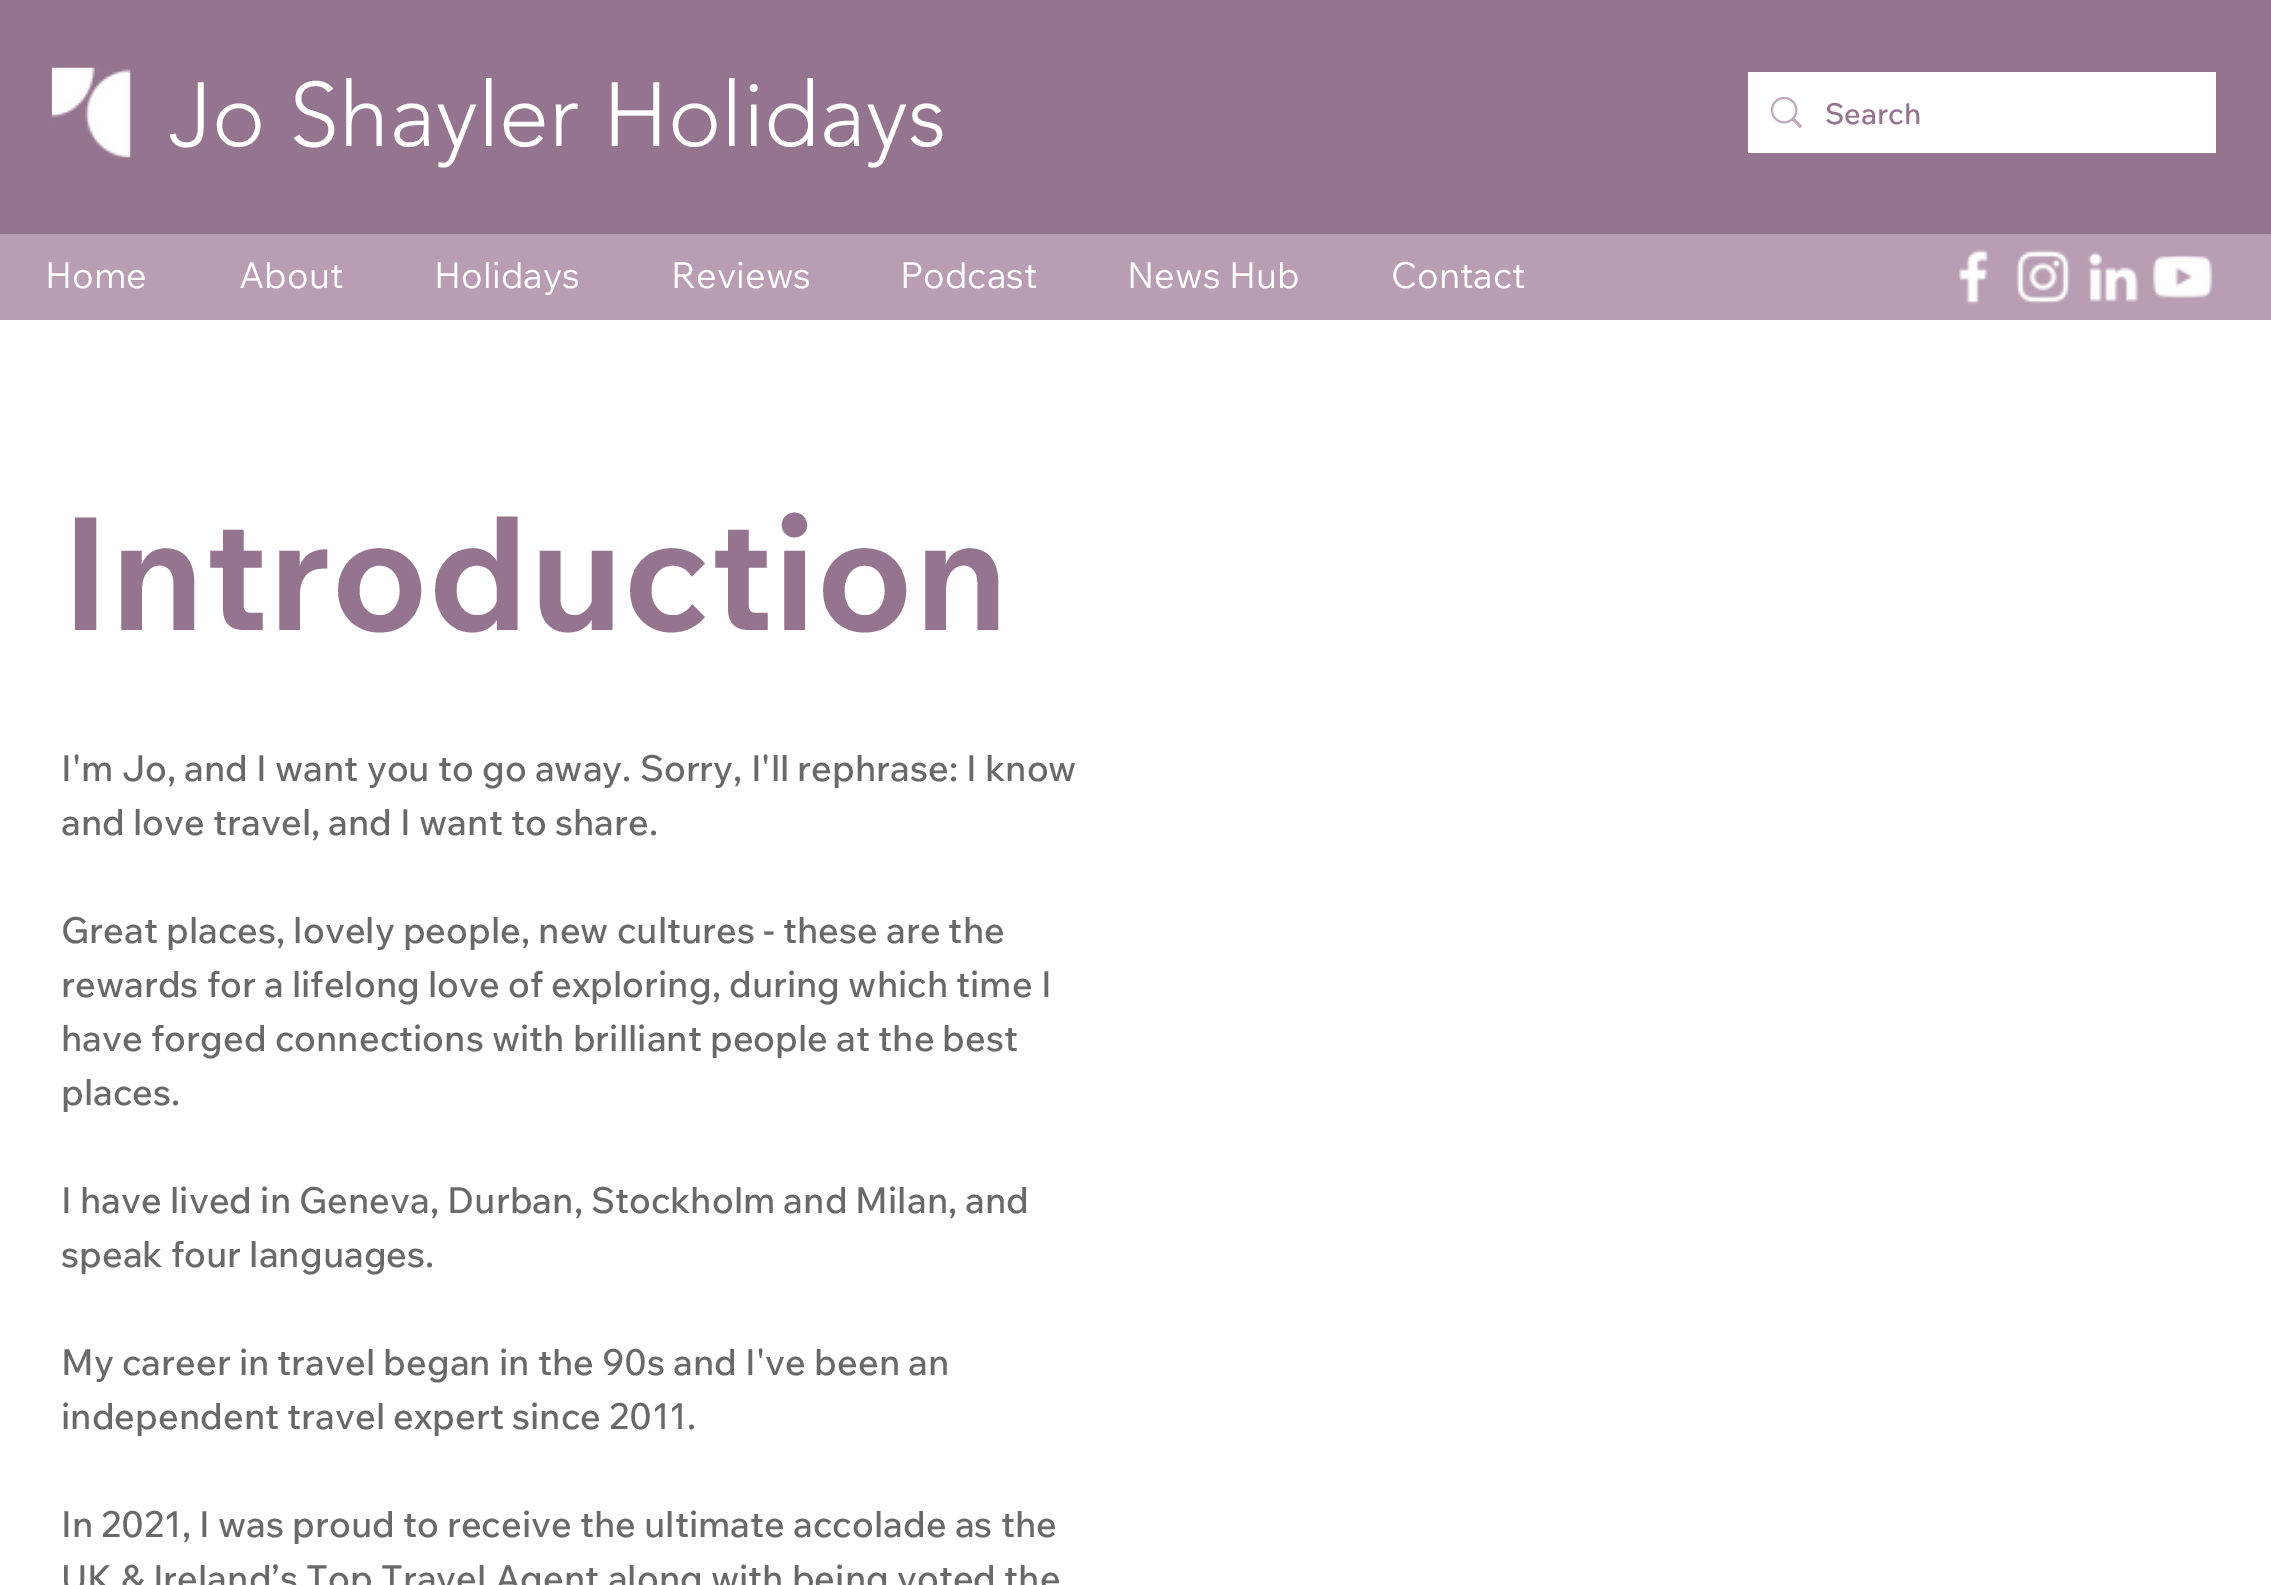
%!PS-Adobe-3.0
%%BoundingBox: 0 0 2271 1585
%%LanguageLevel: 3
%%Pages: 1
%%EndComments
%%BeginProlog
/fn { [ exch dup neg 0 0 3 -1 roll 0 0 ] selectfont } def
/tx { moveto show } def
/bx { rectfill } def
/im { 5 dict begin { /h /w /y /x /name } { exch def } forall
  gsave x y translate w h scale
  w h 8 [w 0 0 h 0 0] name (r) file false 3 colorimage grestore end } def
%%EndProlog
%%BeginSetup
<< /PageSize [2271 1585] >> setpagedevice
%%EndSetup
%%Page: 1 1
0 1585 translate 1 -1 scale
4 setmiterlimit
1 setgray
0 0 2271 1585 bx
0.584 0.455 0.561 setrgbcolor
0 0 2271 234 bx
(image0.raw) 51 67 80 91 im
/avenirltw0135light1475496-Light 90 fn
1 setgray
(Jo Shayler Holidays) 169 146 tx
1748 72 468 81 bx
(image1.raw) 1771 97 31 31 im
/WixMadeforText-Medium 29 fn
0.584 0.455 0.561 setrgbcolor
(Search) 1825 124 tx
0.722 0.616 0.702 setrgbcolor
0 234 2271 86 bx
/WixMadeforText-Regular 36 fn
1 setgray
(Home) 45 288 tx
(About) 239 288 tx
(Holidays) 434 288 tx
(Reviews) 671 288 tx
(Podcast) 900 288 tx
(News Hub) 1127 288 tx
(Contact) 1391 288 tx
(image2.raw) 1959 249 29 56 im
(image3.raw) 2016 249 54 55 im
(image4.raw) 2087 251 51 51 im
(image5.raw) 2152 255 61 43 im
/WixMadeforText-Bold 157.5 fn
0.584 0.455 0.561 setrgbcolor
(Introduction) 61 630 tx
/WixMadeforText-Medium 36 fn
0.412 setgray
(I'm Jo, and I want you to go away. Sorry, I'll rephrase: I know) 61 781 tx
(and love travel, and I want to share.) 61 835 tx
(Great places, lovely people, new cultures - these are the) 61 943 tx
(rewards for a lifelong love of exploring, during which time I) 61 997 tx
(have forged connections with brilliant people at the best) 61 1051 tx
(places.) 61 1105 tx
(I have lived in Geneva, Durban, Stockholm and Milan, and) 61 1213 tx
(speak four languages.) 61 1267 tx
(My career in travel began in the 90s and I've been an) 61 1375 tx
(independent travel expert since 2011.) 61 1429 tx
(In 2021, I was proud to receive the ultimate accolade as the) 61 1537 tx
(UK & Ireland’s Top Travel Agent along with being voted the) 61 1591 tx
showpage
%%EOF
